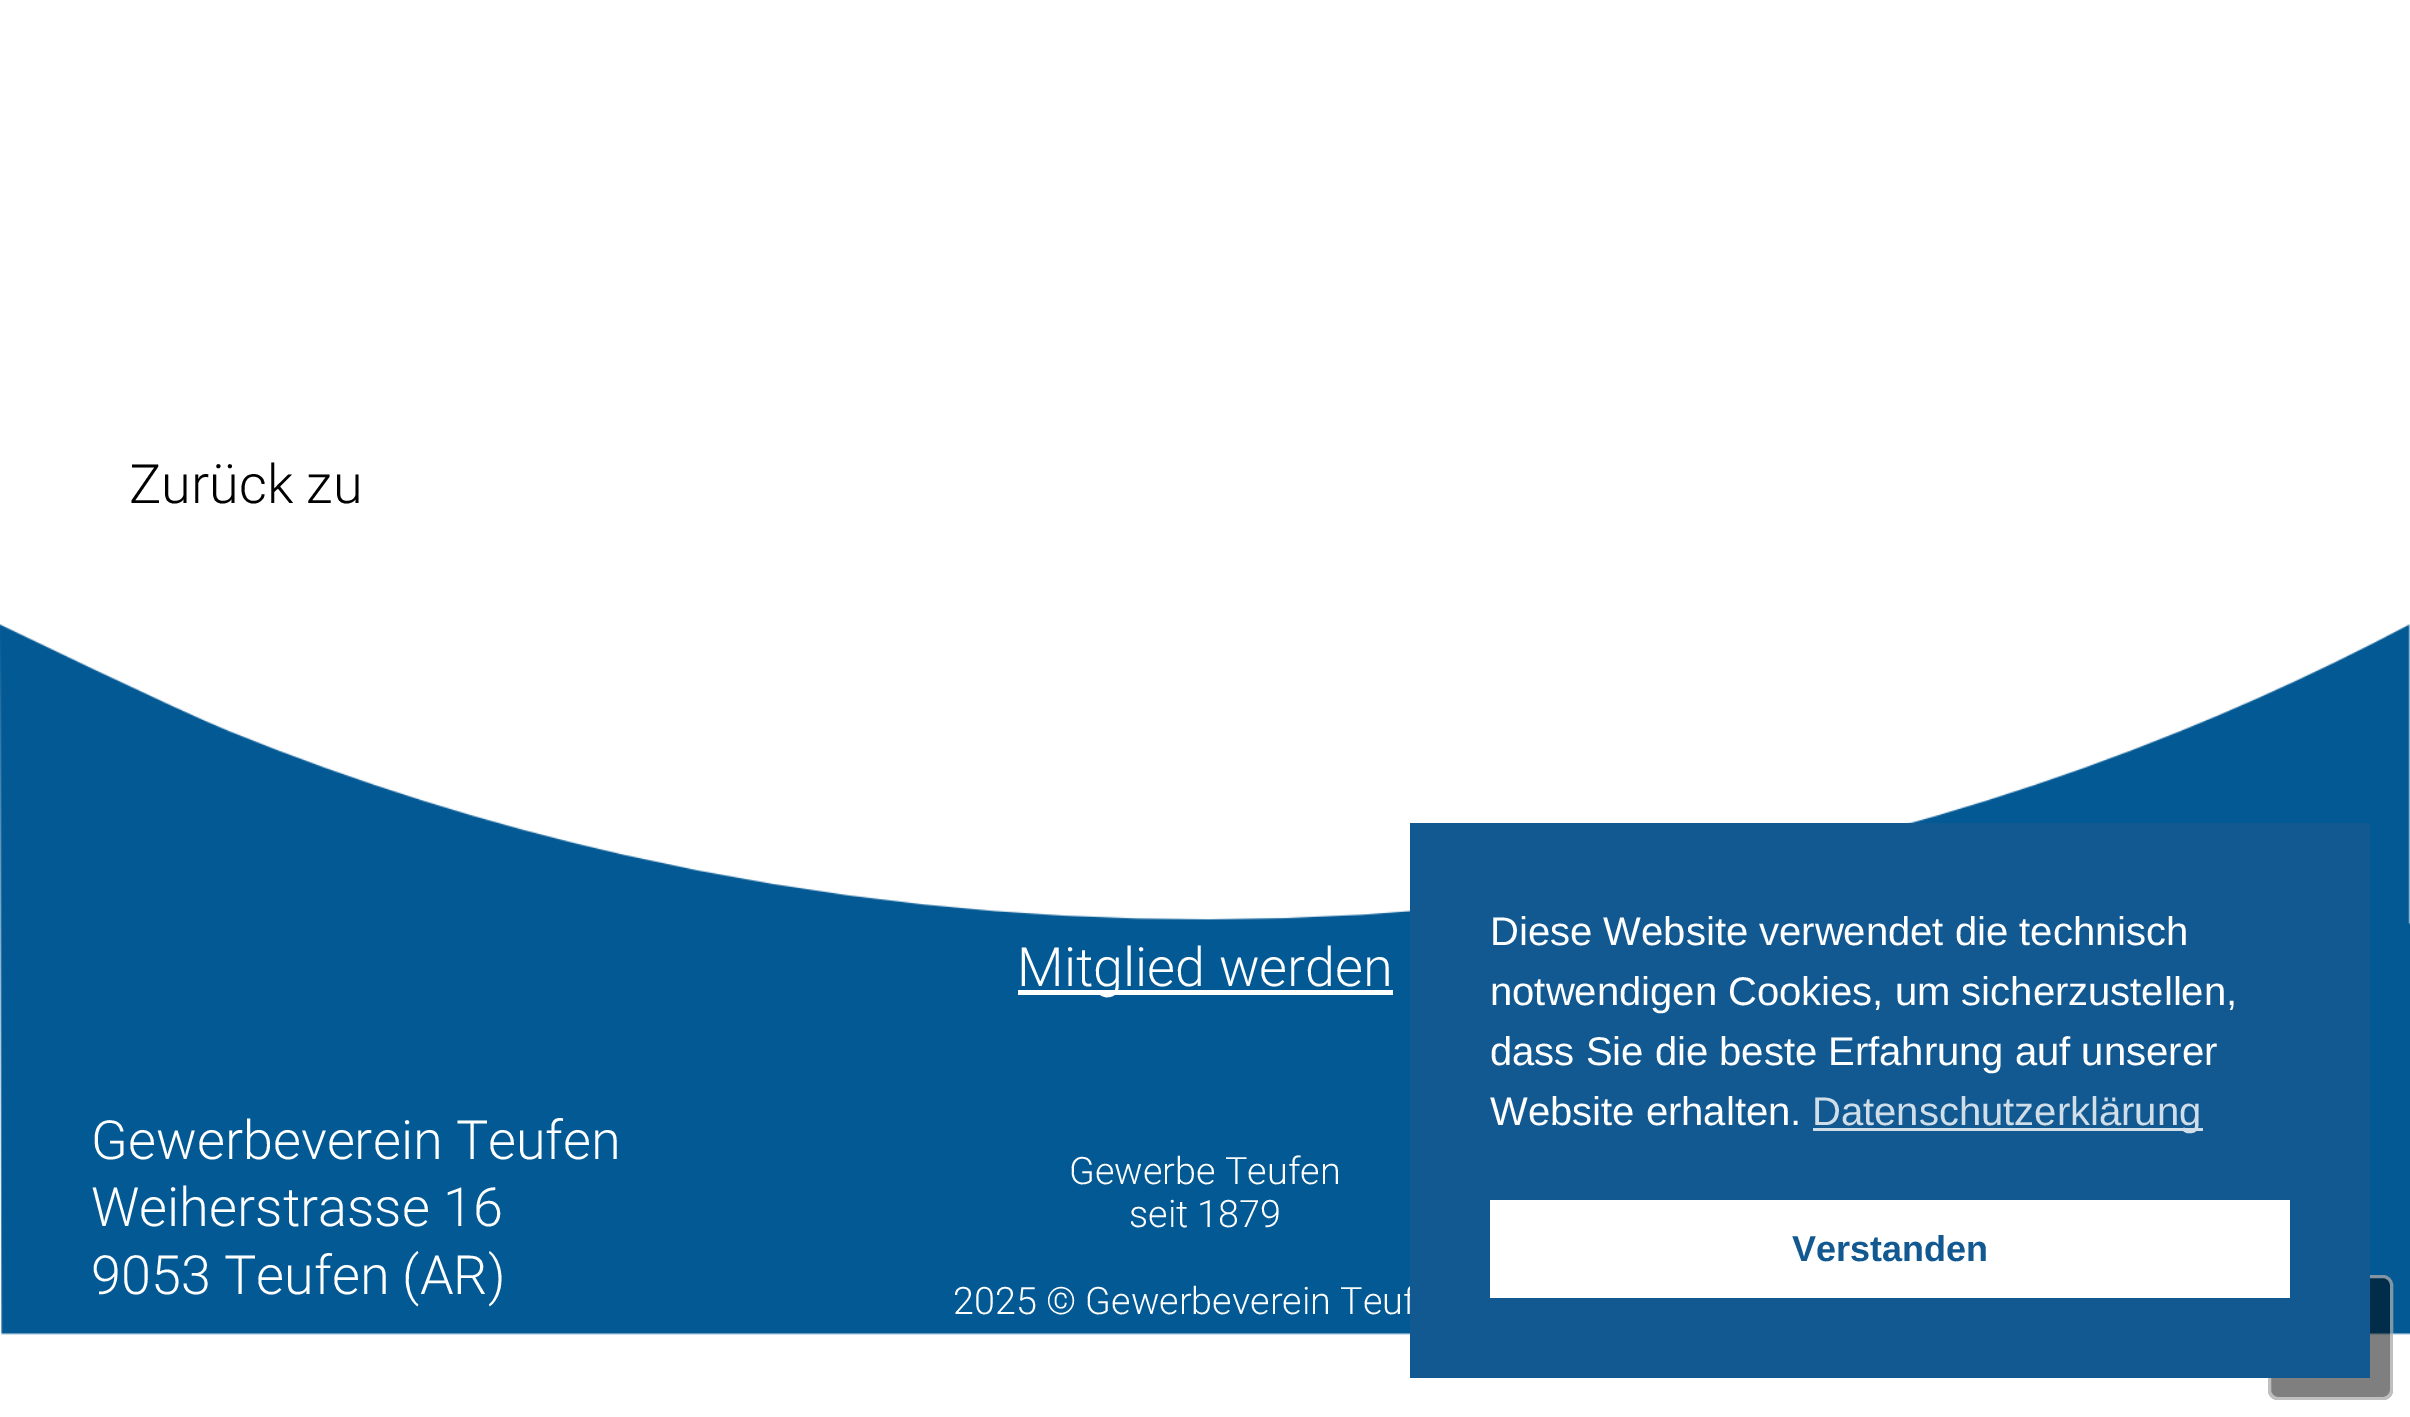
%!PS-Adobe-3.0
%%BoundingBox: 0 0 2410 1417
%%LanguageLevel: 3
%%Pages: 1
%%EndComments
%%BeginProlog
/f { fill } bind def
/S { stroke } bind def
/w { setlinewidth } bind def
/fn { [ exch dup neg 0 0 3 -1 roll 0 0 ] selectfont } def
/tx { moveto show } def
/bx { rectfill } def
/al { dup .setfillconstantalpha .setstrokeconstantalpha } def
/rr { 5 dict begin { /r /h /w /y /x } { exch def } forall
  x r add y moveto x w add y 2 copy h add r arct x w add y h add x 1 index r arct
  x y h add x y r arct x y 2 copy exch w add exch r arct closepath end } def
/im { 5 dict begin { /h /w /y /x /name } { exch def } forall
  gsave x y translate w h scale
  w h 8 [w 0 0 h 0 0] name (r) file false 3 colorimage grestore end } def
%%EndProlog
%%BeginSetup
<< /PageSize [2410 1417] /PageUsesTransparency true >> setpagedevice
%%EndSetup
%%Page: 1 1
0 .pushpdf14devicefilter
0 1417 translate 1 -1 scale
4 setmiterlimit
1 setgray
0 0 2410 1417 bx
/Roboto-Light 54 fn
0 setgray
(Zurück zu) 129 503 tx
(image0.raw) 0 624 2410 711 im
1 setgray
(Gewerbeverein Teufen) 91 1159 tx
(Weiherstrasse 16) 91 1226 tx
(9053 Teufen \(AR\)) 91 1294 tx
1018 990 375 5 bx
(Mitglied werden) 1017 986 tx
/Roboto-Light 37.75 fn
(Gewerbe Teufen) 1069 1184 tx
(seit 1879) 1129 1227 tx
(2025 © Gewerbeverein Teuf) 953 1314 tx
0.5 al
0 setgray
2268 1275 125 125 10 rr f
1 setgray
3 w
2269.5 1276.5 122 122 8.5 rr S
1 al
0.075 0.349 0.569 setrgbcolor
1410 823 960 555 bx
/LiberationSans-Regular 40 fn
1 setgray
(Diese Website verwendet die technisch) 1490 945 tx
(notwendigen Cookies, um sicherzustellen,) 1490 1005 tx
(dass Sie die beste Erfahrung auf unserer) 1490 1065 tx
(Website erhalten.) 1490 1125 tx
0.816 0.871 0.914 setrgbcolor
1813 1128 390 3 bx
(Datenschutzerklärung) 1812 1125 tx
1 setgray
1490 1200 800 98 bx
/LiberationSans-Bold 36 fn
0.075 0.349 0.569 setrgbcolor
(Verstanden) 1792 1261 tx
.poppdf14devicefilter showpage
%%EOF
